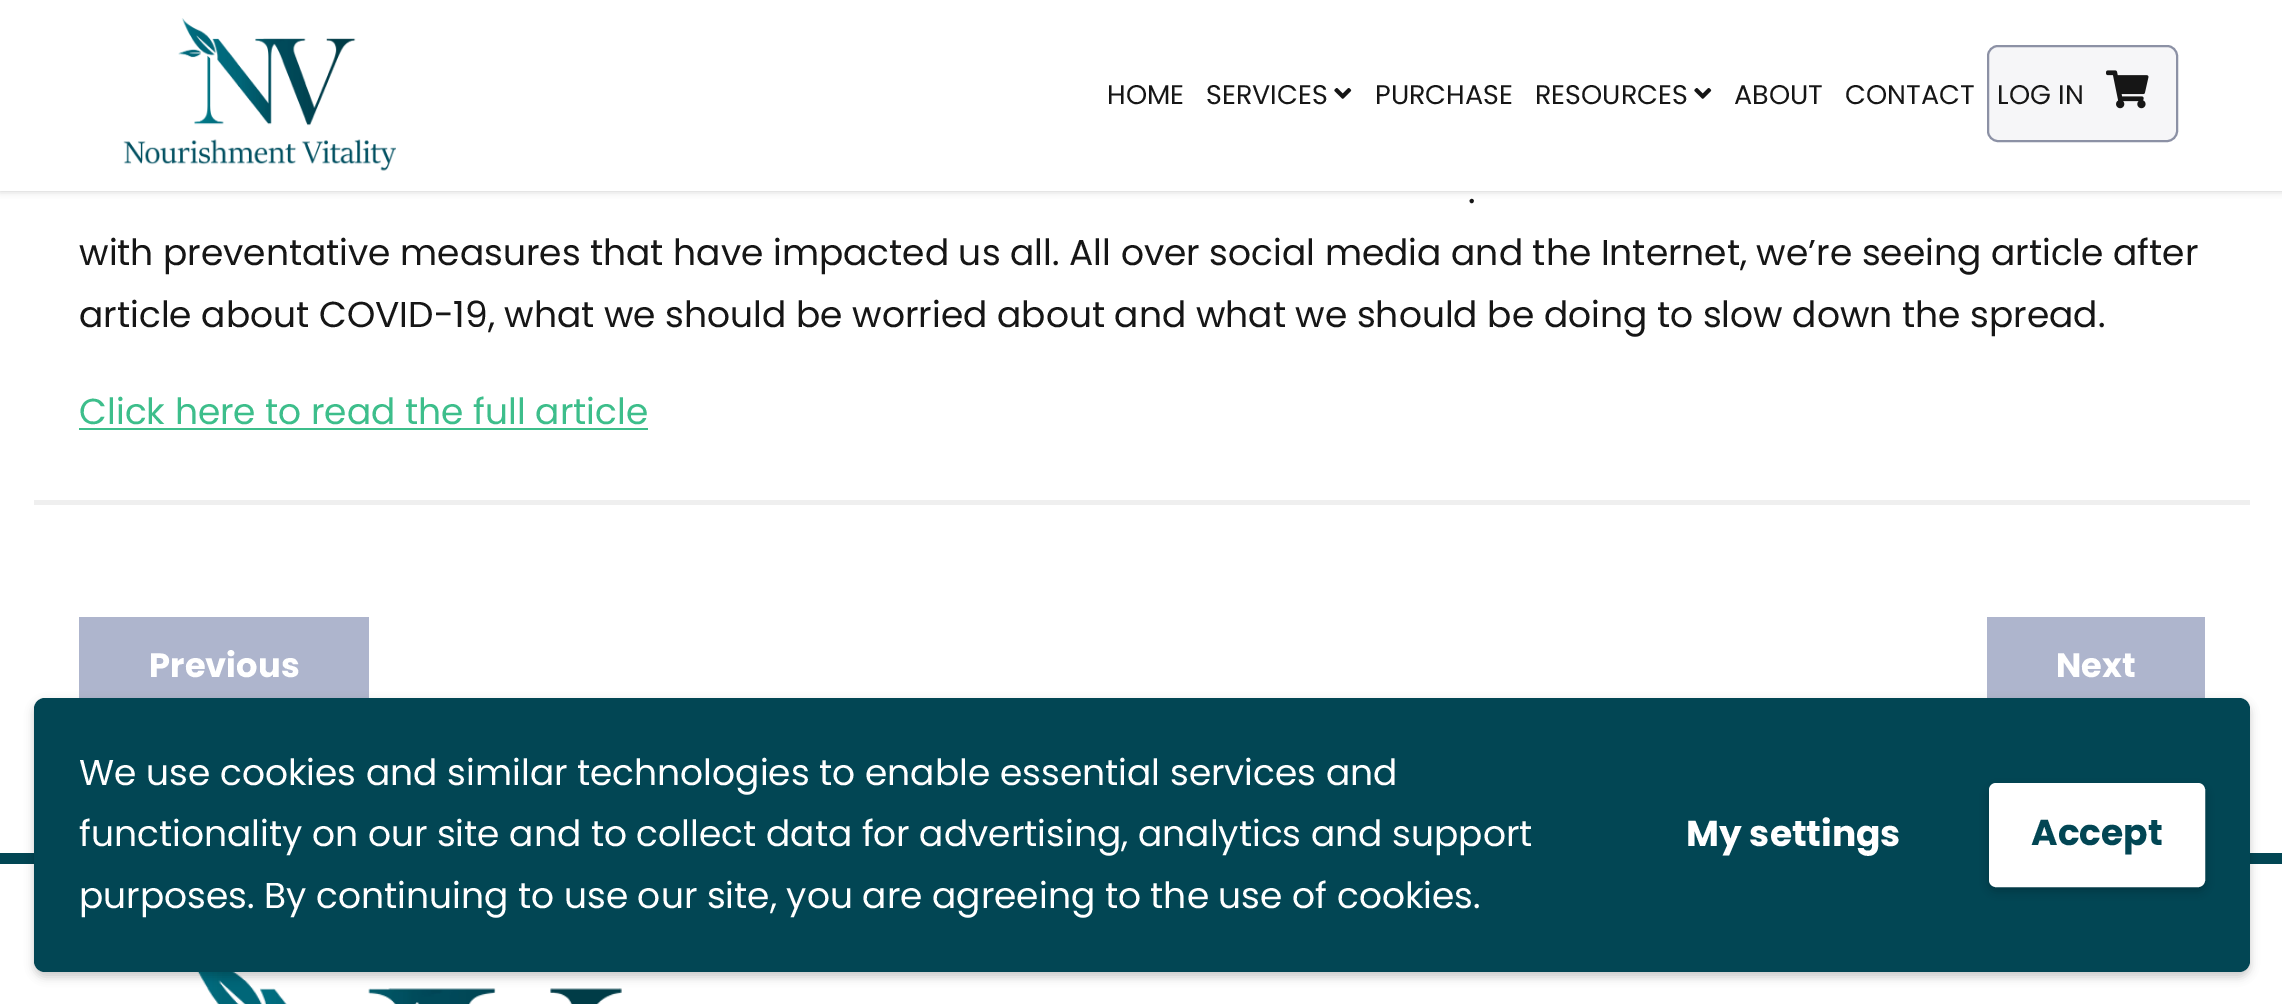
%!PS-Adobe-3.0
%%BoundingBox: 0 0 2282 1004
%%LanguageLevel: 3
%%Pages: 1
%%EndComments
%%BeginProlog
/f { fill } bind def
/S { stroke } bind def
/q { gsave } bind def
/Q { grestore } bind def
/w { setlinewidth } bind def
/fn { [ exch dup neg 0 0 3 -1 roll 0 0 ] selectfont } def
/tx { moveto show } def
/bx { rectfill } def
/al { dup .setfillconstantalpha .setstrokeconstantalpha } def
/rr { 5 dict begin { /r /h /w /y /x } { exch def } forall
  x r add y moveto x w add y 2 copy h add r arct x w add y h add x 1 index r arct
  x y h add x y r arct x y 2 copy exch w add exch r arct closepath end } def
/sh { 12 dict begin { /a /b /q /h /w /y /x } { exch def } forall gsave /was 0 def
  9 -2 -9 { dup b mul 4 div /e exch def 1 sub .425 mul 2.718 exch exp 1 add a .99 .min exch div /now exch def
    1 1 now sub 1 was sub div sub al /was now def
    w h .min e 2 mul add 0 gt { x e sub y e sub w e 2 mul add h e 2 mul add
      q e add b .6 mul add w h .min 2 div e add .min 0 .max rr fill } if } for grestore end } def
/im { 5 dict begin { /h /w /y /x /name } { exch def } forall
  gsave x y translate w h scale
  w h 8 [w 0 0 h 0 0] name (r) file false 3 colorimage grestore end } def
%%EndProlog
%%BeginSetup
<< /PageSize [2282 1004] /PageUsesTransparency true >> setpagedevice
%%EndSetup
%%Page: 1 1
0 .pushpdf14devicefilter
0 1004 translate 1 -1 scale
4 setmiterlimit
1 setgray
0 0 2282 1004 bx
0 setgray
0 0 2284 191 0 3.5 0.2 sh
1 setgray
0 0 2282 191 bx
(image0.raw) 123 18 273 153 im
/Poppins-Regular 27 fn
0.086 setgray
(HOME) 1107 104 tx
(SERVICES) 1206 104 tx
(image1.raw) 1334 88 18 11 im
(PURCHASE) 1375 104 tx
(RESOURCES) 1535 104 tx
(image1.raw) 1694 88 18 11 im
(ABOUT) 1734 104 tx
(CONTACT) 1845 104 tx
0.965 0.965 0.973 setrgbcolor
1988 46 189 95 10 rr q f Q
0.549 0.569 0.647 setrgbcolor
2 w
S
0.086 setgray
(LOG IN) 1997 104 tx
(image2.raw) 2106 70 43 39 im
0.937 setgray
34 500 2216 5 bx
/Poppins-Regular 36 fn
0.086 setgray
(.) 1468 203 tx
(with preventative measures that have impacted us all. All over social media and the Internet, we’re seeing article after) 79 265 tx
(article about COVID-19, what we should be worried about and what we should be doing to slow down the spread.) 79 327 tx
0.239 0.745 0.545 setrgbcolor
(Click here to read the full article) 79 424 tx
79 428 569 2 bx
0.682 0.71 0.804 setrgbcolor
79 617 290 81 bx
/Poppins-Bold 33.75 fn
1 setgray
(Previous) 149 677 tx
0.682 0.71 0.804 setrgbcolor
1987 617 218 81 bx
1 setgray
(Next) 2056 677 tx
0.008 0.275 0.329 setrgbcolor
0 853 2282 11 bx
(image3.raw) 197 972 425 32 im
0 setgray
34 702 2216 275 11 4.5 0.2 sh
0.008 0.275 0.329 setrgbcolor
34 698 2216 274 11 rr f
/Poppins-Regular 36 fn
1 setgray
(We use cookies and similar technologies to enable essential services and) 79 785 tx
(functionality on our site and to collect data for advertising, analytics and support) 79 846 tx
(purposes. By continuing to use our site, you are agreeing to the use of cookies.) 79 908 tx
/Poppins-Bold 36 fn
(My settings) 1686 846 tx
0 setgray
1989 788 216 103 7 4.5 0.2 sh
1 setgray
1990 784 214 102 6 rr q f Q
S
0.008 0.275 0.329 setrgbcolor
(Accept) 2031 845 tx
.poppdf14devicefilter showpage
%%EOF
